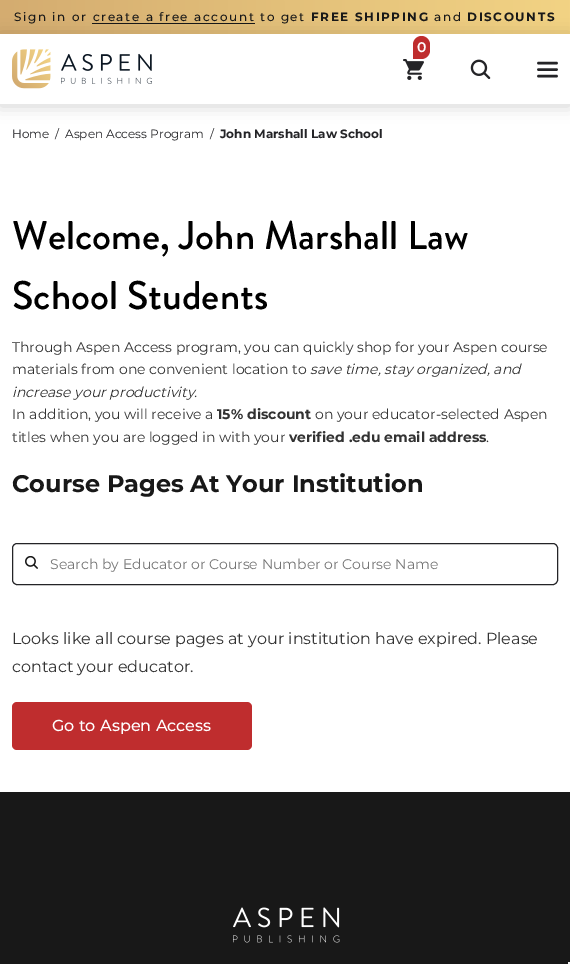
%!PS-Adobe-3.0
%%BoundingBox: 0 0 570 964
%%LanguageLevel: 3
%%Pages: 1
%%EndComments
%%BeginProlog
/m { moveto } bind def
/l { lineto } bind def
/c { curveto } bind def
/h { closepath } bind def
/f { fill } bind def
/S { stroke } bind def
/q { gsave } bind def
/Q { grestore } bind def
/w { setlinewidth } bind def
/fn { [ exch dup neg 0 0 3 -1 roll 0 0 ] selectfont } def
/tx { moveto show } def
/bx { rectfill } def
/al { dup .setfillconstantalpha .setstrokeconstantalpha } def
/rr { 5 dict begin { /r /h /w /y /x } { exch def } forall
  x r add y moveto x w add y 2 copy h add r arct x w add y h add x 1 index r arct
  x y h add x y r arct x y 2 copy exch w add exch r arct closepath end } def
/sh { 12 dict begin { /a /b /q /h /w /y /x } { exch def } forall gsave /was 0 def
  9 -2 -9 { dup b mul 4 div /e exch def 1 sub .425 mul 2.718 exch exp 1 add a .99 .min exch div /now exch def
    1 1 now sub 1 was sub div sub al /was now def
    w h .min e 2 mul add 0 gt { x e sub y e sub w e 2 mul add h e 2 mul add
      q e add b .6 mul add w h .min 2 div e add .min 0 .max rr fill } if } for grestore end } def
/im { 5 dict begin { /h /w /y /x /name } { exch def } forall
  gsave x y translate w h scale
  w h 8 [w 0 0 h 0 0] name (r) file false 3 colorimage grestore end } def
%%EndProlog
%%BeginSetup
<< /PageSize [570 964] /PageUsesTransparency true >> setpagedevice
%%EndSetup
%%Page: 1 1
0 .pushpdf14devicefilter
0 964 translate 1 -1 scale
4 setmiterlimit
1 setgray
0 0 570 964 bx
q 0 0 m 570 0 l 570 34 l 0 34 l h clip newpath
<< /ShadingType 2 /ColorSpace /DeviceRGB /Coords [0 17 570 17] /Extend [true true] /Function << /FunctionType 2 /Domain [0 1] /C0 [0.831 0.675 0.439] /C1 [0.949 0.827 0.518] /N 1 >> >> shfill Q
/Montserrat-Medium 12 fn
0.094 setgray
14 21 m 1.6 0 (Sign in or create a free account to get) ashow
/Montserrat-Bold 12 fn
311 21 m 1.6 0 (FREE SHIPPING) ashow
/Montserrat-Medium 12 fn
434 21 m 1.6 0 (and) ashow
/Montserrat-Bold 12 fn
467 21 m 1.6 0 (DISCOUNTS) ashow
92 23 163 1 bx
q
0 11 m 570 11 l 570 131 l 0 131 l h 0 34 m 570 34 l 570 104 l 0 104 l h eoclip newpath
0 setgray
0 36 570 70 0 8 0.18 sh
Q
0.749 0.176 0.18 setrgbcolor
421.5 36 m 426 36 430 40 430 44.5 c 430 50.5 l 430 55 426 59 421.5 59 c 413 59 l 413 44.5 l 413 40 417 36 421.5 36 c h f
/Montserrat-SemiBold 14 fn
1 setgray
(0) 417 52 tx
(image0.raw) 403 59 21 21 im
(image1.raw) 470 59 21 21 im
0.141 0.141 0.153 setrgbcolor
2.6 w
1 setlinecap
1 setlinejoin
538.5 76 m 556.5 76 l 538.5 69.5 m 556.5 69.5 l 538.5 63 m 556.5 63 l S
(image2.raw) 12 49 140 40 im
/Montserrat-Regular 12 fn
(Home) 12 138 tx
(/) 55 138 tx
(Aspen Access Program) 65 138 tx
(/) 210 138 tx
/Montserrat-Bold 12 fn
(John Marshall Law School) 220 138 tx
/BrandonGrotesque-Medium 40 fn
0 setgray
(Welcome, John Marshall Law) 12 249 tx
(School Students) 12 309 tx
/Montserrat-Regular 14 fn
0.196 setgray
(Through Aspen Access program, you can quickly shop for your Aspen course) 12 352 tx
(materials from one convenient location to) 12 374 tx
/Montserrat-Italic 14 fn
(save time, stay organized, and) 310 374 tx
(increase your productivity.) 12 397 tx
/Montserrat-Regular 14 fn
(In addition, you will receive a) 12 419 tx
/Montserrat-Bold 14 fn
(15% discount) 217 419 tx
/Montserrat-Regular 14 fn
(on your educator-selected Aspen) 315 419 tx
(titles when you are logged in with your) 12 442 tx
/Montserrat-Bold 14 fn
(verified .edu email address) 289 442 tx
/Montserrat-Regular 14 fn
(.) 486 442 tx
/Montserrat-Bold 24 fn
0.094 setgray
(Course Pages At Your Institution) 12 492 tx
0.141 0.141 0.153 setrgbcolor
1 w
0 setlinecap
0 setlinejoin
12.5 543.5 545 41 4.5 rr S
(image3.raw) 25 556 13 13 im
/Montserrat-Regular 14 fn
0.459 setgray
(Search by Educator or Course Number or Course Name) 50 569 tx
/Montserrat-Regular 16 fn
0.196 setgray
(Looks like all course pages at your institution have expired. Please) 12 644 tx
(contact your educator.) 12 672 tx
0.749 0.176 0.18 setrgbcolor
12 702 240 48 5 rr f
/Montserrat-Medium 16 fn
1 setgray
(Go to Aspen Access) 52 731 tx
0.094 setgray
0 792 570 172 bx
(image4.raw) 233 907 107 36 im
0.961 setgray
568 962 2 2 bx
.poppdf14devicefilter showpage
%%EOF
